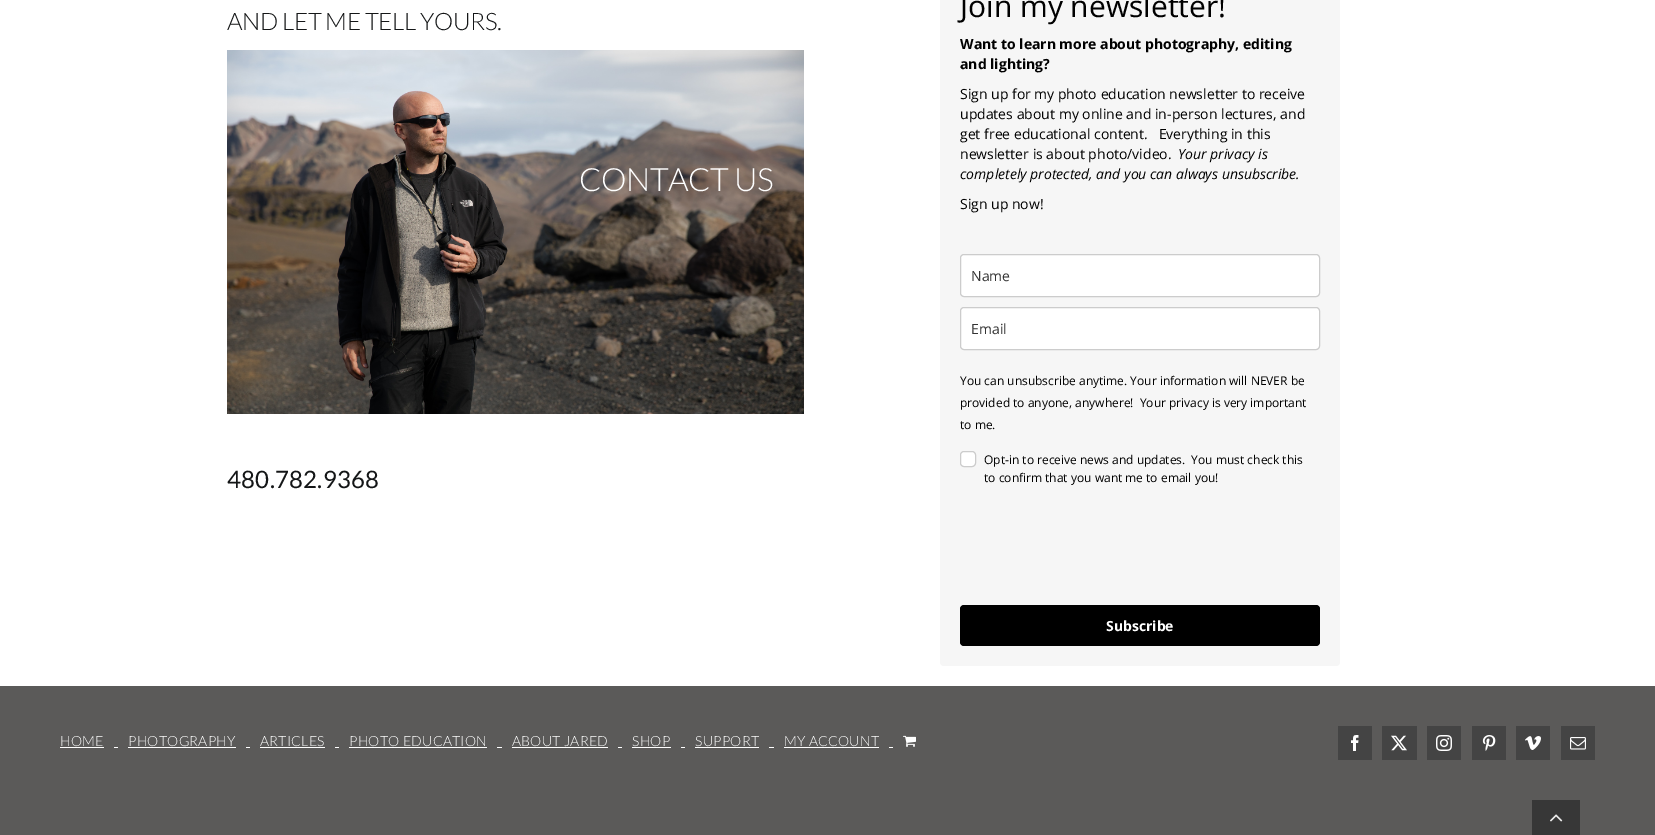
%!PS-Adobe-3.0
%%BoundingBox: 0 0 1655 835
%%LanguageLevel: 3
%%Pages: 1
%%EndComments
%%BeginProlog
/m { moveto } bind def
/f { fill } bind def
/S { stroke } bind def
/q { gsave } bind def
/Q { grestore } bind def
/fn { [ exch dup neg 0 0 3 -1 roll 0 0 ] selectfont } def
/tx { moveto show } def
/bx { rectfill } def
/rr { 5 dict begin { /r /h /w /y /x } { exch def } forall
  x r add y moveto x w add y 2 copy h add r arct x w add y h add x 1 index r arct
  x y h add x y r arct x y 2 copy exch w add exch r arct closepath end } def
/im { 5 dict begin { /h /w /y /x /name } { exch def } forall
  gsave x y translate w h scale
  w h 8 [w 0 0 h 0 0] name (r) file false 3 colorimage grestore end } def
%%EndProlog
%%BeginSetup
<< /PageSize [1655 835] >> setpagedevice
%%EndSetup
%%Page: 1 1
0 835 translate 1 -1 scale
4 setmiterlimit
1 setgray
0 0 1655 835 bx
/Lato-Light 24 fn
0.078 0.086 0.09 setrgbcolor
227 30 m -0.4 0 (AND LET ME TELL YOURS.) ashow
(image0.raw) 227 50 577 364 im
/Lato-Light 32 fn
1 setgray
579 191 m -0.5 0 (CONTACT US) ashow
/Lato-Regular 24 fn
0.078 0.086 0.09 setrgbcolor
227 488 m 0.25 0 (480.782.9368) ashow
0.965 setgray
940 -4 400 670 4 rr f
/OpenSans-Regular 30 fn
0 setgray
(Join my newsletter!) 960 17 tx
/OpenSans-Bold 14 fn
(Want to learn more about photography, editing) 960 49 tx
(and lighting?) 960 69 tx
/OpenSans-Regular 14 fn
(Sign up for my photo education newsletter to receive) 960 99 tx
(updates about my online and in-person lectures, and) 960 119 tx
(get free educational content.   Everything in this) 960 139 tx
(newsletter is about photo/video.) 960 159 tx
/OpenSans-Italic 14 fn
(Your privacy is) 1178 159 tx
(completely protected, and you can always unsubscribe.) 960 179 tx
/OpenSans-Regular 14 fn
(Sign up now!) 960 209 tx
1 setgray
960.5 254.5 359 42 3.5 rr q f Q
0.8 setgray
S
0.2 setgray
(Name) 971 281 tx
1 setgray
960.5 307.5 359 42 3.5 rr q f Q
0.8 setgray
S
0.2 setgray
(Email) 971 334 tx
/OpenSans-Regular 12 fn
0 setgray
(You can unsubscribe anytime. Your information will NEVER be) 960 385 tx
(provided to anyone, anywhere!  Your privacy is very important) 960 407 tx
(to me.) 960 429 tx
1 setgray
960.5 451.5 15 15 3.5 rr q f Q
0.8 setgray
S
0 setgray
(Opt-in to receive news and updates.  You must check this) 984 464 tx
(to confirm that you want me to email you!) 984 482 tx
960 605 360 41 4 rr f
/OpenSans-Bold 14 fn
1 setgray
(Subscribe) 1106 631 tx
0.357 0.353 0.349 setrgbcolor
0 686 1655 149 bx
/Lato-Light 14 fn
1 setgray
60 746 m 0.25 0 (HOME) ashow
60 747 44 1 bx
114 747 4 1 bx
128 746 m 0.25 0 (PHOTOGRAPHY) ashow
128 747 108 1 bx
246 747 4 1 bx
260 746 m 0.25 0 (ARTICLES) ashow
260 747 65 1 bx
335 747 4 1 bx
349 746 m 0.25 0 (PHOTO EDUCATION) ashow
349 747 138 1 bx
497 747 5 1 bx
512 746 m 0.25 0 (ABOUT JARED) ashow
512 747 96 1 bx
618 747 4 1 bx
632 746 m 0.25 0 (SHOP) ashow
632 747 39 1 bx
681 747 4 1 bx
695 746 m 0.25 0 (SUPPORT) ashow
695 747 64 1 bx
769 747 5 1 bx
784 746 m 0.25 0 (MY ACCOUNT) ashow
784 747 95 1 bx
889 747 4 1 bx
(image1.raw) 903 735 13 12 im
0.267 setgray
1338 726 34 34 bx
(image2.raw) 1351 735 8 16 im
1382 726 35 34 bx
(image3.raw) 1391 735 16 16 im
1427 726 34 34 bx
(image4.raw) 1436 735 16 16 im
1472 726 34 34 bx
(image5.raw) 1482 735 14 16 im
1516 726 34 34 bx
(image6.raw) 1525 736 16 14 im
1561 726 34 34 bx
(image7.raw) 1570 737 16 13 im
0.216 setgray
1532 800 48 35 bx
(image8.raw) 1550 814 13 8 im
showpage
%%EOF
